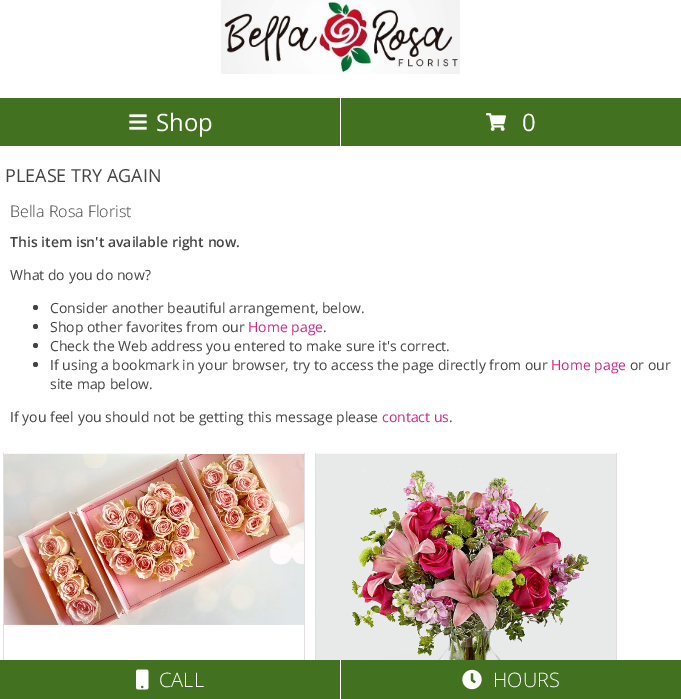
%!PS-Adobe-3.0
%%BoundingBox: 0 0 681 699
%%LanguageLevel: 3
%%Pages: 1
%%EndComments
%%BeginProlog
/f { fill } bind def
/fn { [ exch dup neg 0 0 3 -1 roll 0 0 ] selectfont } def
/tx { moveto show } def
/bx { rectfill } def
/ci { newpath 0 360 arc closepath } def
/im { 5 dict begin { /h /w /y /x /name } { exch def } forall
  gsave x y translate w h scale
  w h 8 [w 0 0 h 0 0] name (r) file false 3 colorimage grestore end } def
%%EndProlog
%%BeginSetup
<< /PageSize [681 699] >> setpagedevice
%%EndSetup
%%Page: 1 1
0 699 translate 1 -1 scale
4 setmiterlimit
1 setgray
0 0 681 699 bx
(image0.raw) 221 0 239 74 im
0.259 0.447 0.122 setrgbcolor
0 98 340 48 bx
(image1.raw) 129 114 18 16 im
/OpenSans-Regular 24 fn
1 setgray
(Shop) 156 131 tx
0.259 0.447 0.122 setrgbcolor
341 98 340 48 bx
(image2.raw) 486 113 20 18 im
1 setgray
(0) 522 131 tx
/OpenSans-Regular 18 fn
0.267 setgray
(PLEASE TRY AGAIN) 5 182 tx
/OpenSans-Light 16 fn
(Bella Rosa Florist) 10 217 tx
/OpenSans-SemiBold 14 fn
(This item isn't available right now.) 10 247 tx
/OpenSans-Regular 14 fn
(What do you do now?) 10 280 tx
35.5 307.5 2.5 ci f
(Consider another beautiful arrangement, below.) 50 313 tx
35.5 326.5 2.5 ci f
(Shop other favorites from our) 50 332 tx
0.804 0.161 0.522 setrgbcolor
(Home page) 248 332 tx
0.267 setgray
(.) 323 332 tx
35.5 345.5 2.5 ci f
(Check the Web address you entered to make sure it's correct.) 50 351 tx
35.5 364.5 2.5 ci f
(If using a bookmark in your browser, try to access the page directly from our) 50 370 tx
0.804 0.161 0.522 setrgbcolor
(Home page) 551 370 tx
0.267 setgray
(or our) 630 370 tx
(site map below.) 50 389 tx
(If you feel you should not be getting this message please) 10 422 tx
0.804 0.161 0.522 setrgbcolor
(contact us) 382 422 tx
0.267 setgray
(.) 449 422 tx
0.976 setgray
3 453 302 1 bx
0.886 0.871 0.867 setrgbcolor
304 453 1 207 bx
3 453 1 207 bx
(image3.raw) 4 454 300 171 im
0.976 setgray
315 453 302 1 bx
0.886 0.871 0.867 setrgbcolor
616 453 1 207 bx
315 453 1 207 bx
(image4.raw) 316 454 300 206 im
0.259 0.447 0.122 setrgbcolor
0 660 340 39 bx
(image5.raw) 136 669 13 21 im
/OpenSans-Light 20 fn
1 setgray
(CALL) 159 687 tx
0.259 0.447 0.122 setrgbcolor
341 660 340 39 bx
(image6.raw) 462 669 20 21 im
1 setgray
(HOURS) 493 687 tx
showpage
%%EOF
